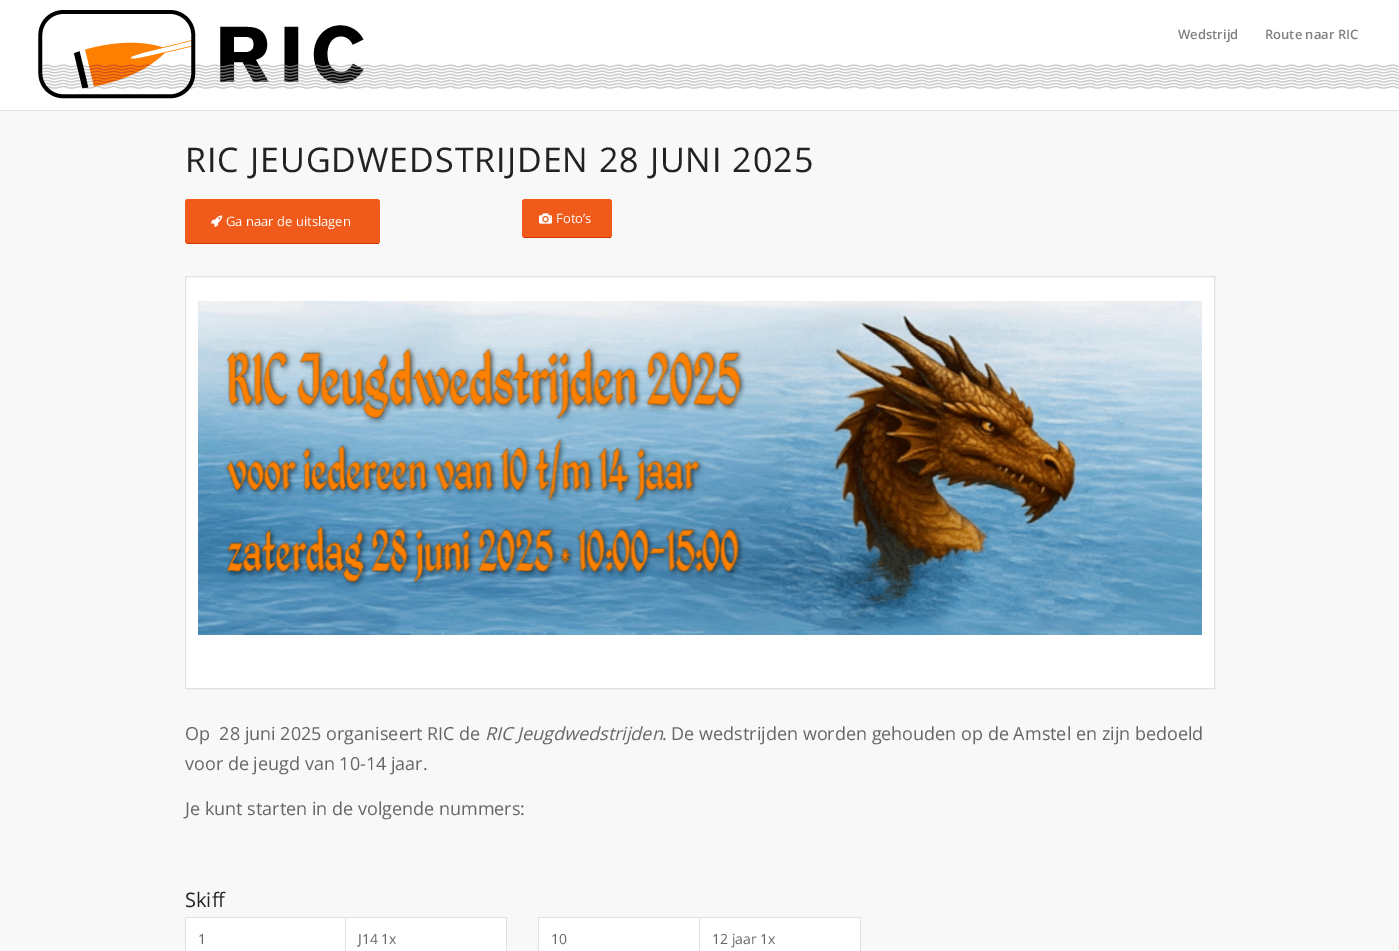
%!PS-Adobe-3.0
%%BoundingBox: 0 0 1399 951
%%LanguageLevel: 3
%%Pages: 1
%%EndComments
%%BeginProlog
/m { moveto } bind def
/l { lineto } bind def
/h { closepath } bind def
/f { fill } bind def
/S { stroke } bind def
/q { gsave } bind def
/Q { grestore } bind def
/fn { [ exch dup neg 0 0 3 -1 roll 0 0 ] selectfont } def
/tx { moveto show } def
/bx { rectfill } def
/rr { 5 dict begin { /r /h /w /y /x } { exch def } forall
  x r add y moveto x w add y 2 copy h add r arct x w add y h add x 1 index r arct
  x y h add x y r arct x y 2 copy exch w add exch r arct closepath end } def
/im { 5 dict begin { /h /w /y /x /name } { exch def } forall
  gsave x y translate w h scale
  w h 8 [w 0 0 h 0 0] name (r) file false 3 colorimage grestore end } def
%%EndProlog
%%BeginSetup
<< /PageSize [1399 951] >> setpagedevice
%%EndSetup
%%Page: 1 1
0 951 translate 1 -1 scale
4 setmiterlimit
0.973 setgray
0 0 1399 951 bx
1 setgray
0 0 1399 110 bx
0.882 setgray
0 110 1399 1 bx
(image0.raw) 38 10 1361 89 im
/OpenSans-SemiBold 13 fn
0.502 setgray
(Wedstrijd) 1178 39 tx
(Route naar RIC) 1265 39 tx
/OpenSans-Regular 34 fn
0.133 setgray
185 172 m 1 0 (RIC JEUGDWEDSTRIJDEN 28 JUNI 2025) ashow
0.941 0.353 0.102 setrgbcolor
185 199 195 45 3 rr f
0.816 0.22 0.031 setrgbcolor
187 243 192 1 bx
(image1.raw) 211 215 12 12 im
/OpenSans-Regular 13 fn
1 setgray
(Ga naar de uitslagen) 226 226 tx
0.941 0.353 0.102 setrgbcolor
522 199 90 39 3 rr f
0.816 0.22 0.031 setrgbcolor
524 237 87 1 bx
(image2.raw) 539 213 13 11 im
1 setgray
(Foto’s) 556 223 tx
185.5 276.5 m 1214.5 276.5 l 1214.5 688.5 l 185.5 688.5 l h q f Q
0.882 setgray
S
(image3.raw) 198 301 1004 334 im
/OpenSans-Regular 18 fn
0.4 setgray
(Op  28 juni 2025 organiseert RIC de) 185 740 tx
/OpenSans-Italic 18 fn
(RIC Jeugdwedstrijden) 485 740 tx
/OpenSans-Regular 18 fn
(. De wedstrijden worden gehouden op de Amstel en zijn bedoeld) 662 740 tx
(voor de jeugd van 10-14 jaar.) 185 770 tx
(Je kunt starten in de volgende nummers:) 185 815 tx
/OpenSans-Regular 20 fn
0.133 setgray
(Skiff) 185 907 tx
1 setgray
186 918 320 33 bx
0.882 setgray
185 917 322 1 bx
345 917 1 34 bx
185 917 1 34 bx
/OpenSans-Regular 14 fn
0.4 setgray
(1) 198 944 tx
0.882 setgray
506 917 1 34 bx
0.4 setgray
(J14 1x) 358 944 tx
1 setgray
539 918 321 33 bx
0.882 setgray
538 917 323 1 bx
699 917 1 34 bx
538 917 1 34 bx
0.4 setgray
(10) 551 944 tx
0.882 setgray
860 917 1 34 bx
0.4 setgray
(12 jaar 1x) 712 944 tx
showpage
%%EOF
